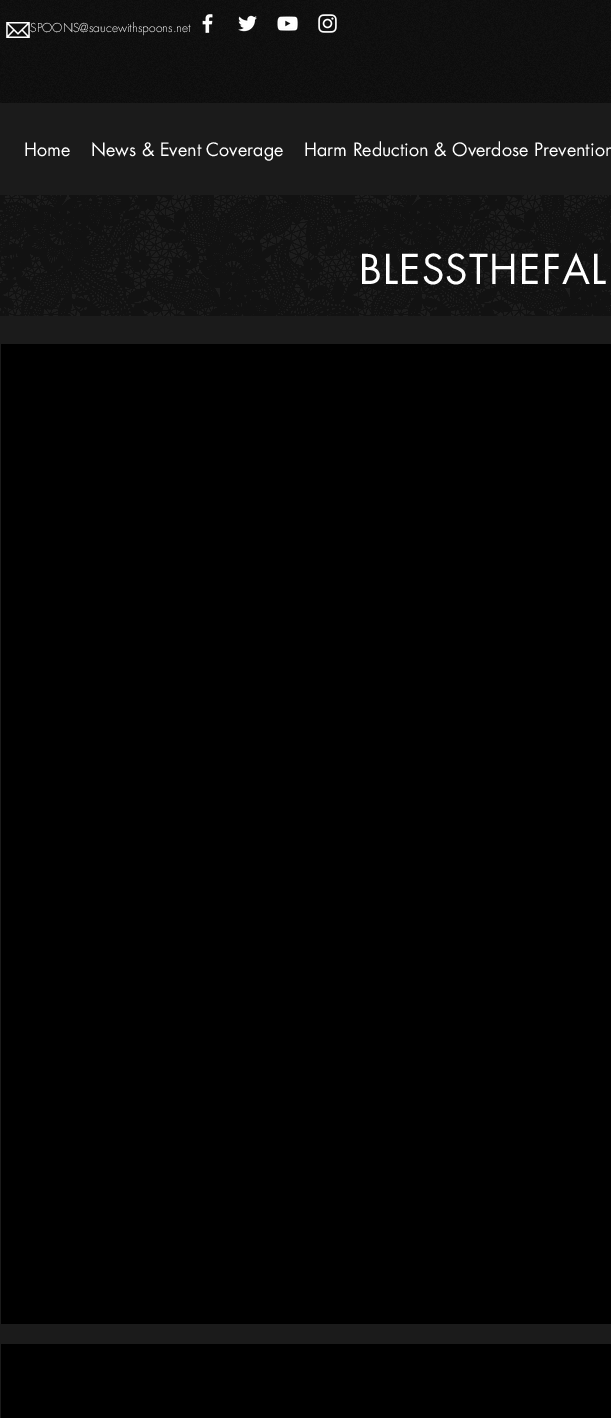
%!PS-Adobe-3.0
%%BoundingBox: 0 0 611 1418
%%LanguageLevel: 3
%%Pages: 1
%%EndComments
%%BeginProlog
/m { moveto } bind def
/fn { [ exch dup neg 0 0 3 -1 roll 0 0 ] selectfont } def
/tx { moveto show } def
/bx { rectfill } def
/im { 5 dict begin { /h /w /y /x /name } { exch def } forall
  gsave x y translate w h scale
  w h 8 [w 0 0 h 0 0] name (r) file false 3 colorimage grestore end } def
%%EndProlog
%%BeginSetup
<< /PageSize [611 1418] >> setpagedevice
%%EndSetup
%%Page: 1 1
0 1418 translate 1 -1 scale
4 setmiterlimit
0.09 setgray
0 0 611 1418 bx
0.051 setgray
0 0 611 103 bx
(image0.raw) 0 0 611 103 im
(image1.raw) 6 22 24 16 im
/futura-Light 12 fn
1 setgray
(SPOONS@saucewithspoons.net) 30 32 tx
(image2.raw) 202 14 11 19 im
(image3.raw) 238 15 19 17 im
(image4.raw) 277 16 21 15 im
(image5.raw) 318 14 19 19 im
0.106 setgray
0 103 611 92 bx
/futura-Regular 18 fn
1 setgray
(Home) 24 156 tx
(News & Event Coverage) 91 156 tx
(Harm Reduction & Overdose Prevention) 304 156 tx
(image6.raw) 0 195 611 121 im
/futura-Regular 40 fn
359 284 m 1.25 0 (BLESSTHEFAL) ashow
0.106 setgray
0 316 611 1102 bx
0 setgray
1 344 610 980 bx
1 1344 610 74 bx
showpage
%%EOF
